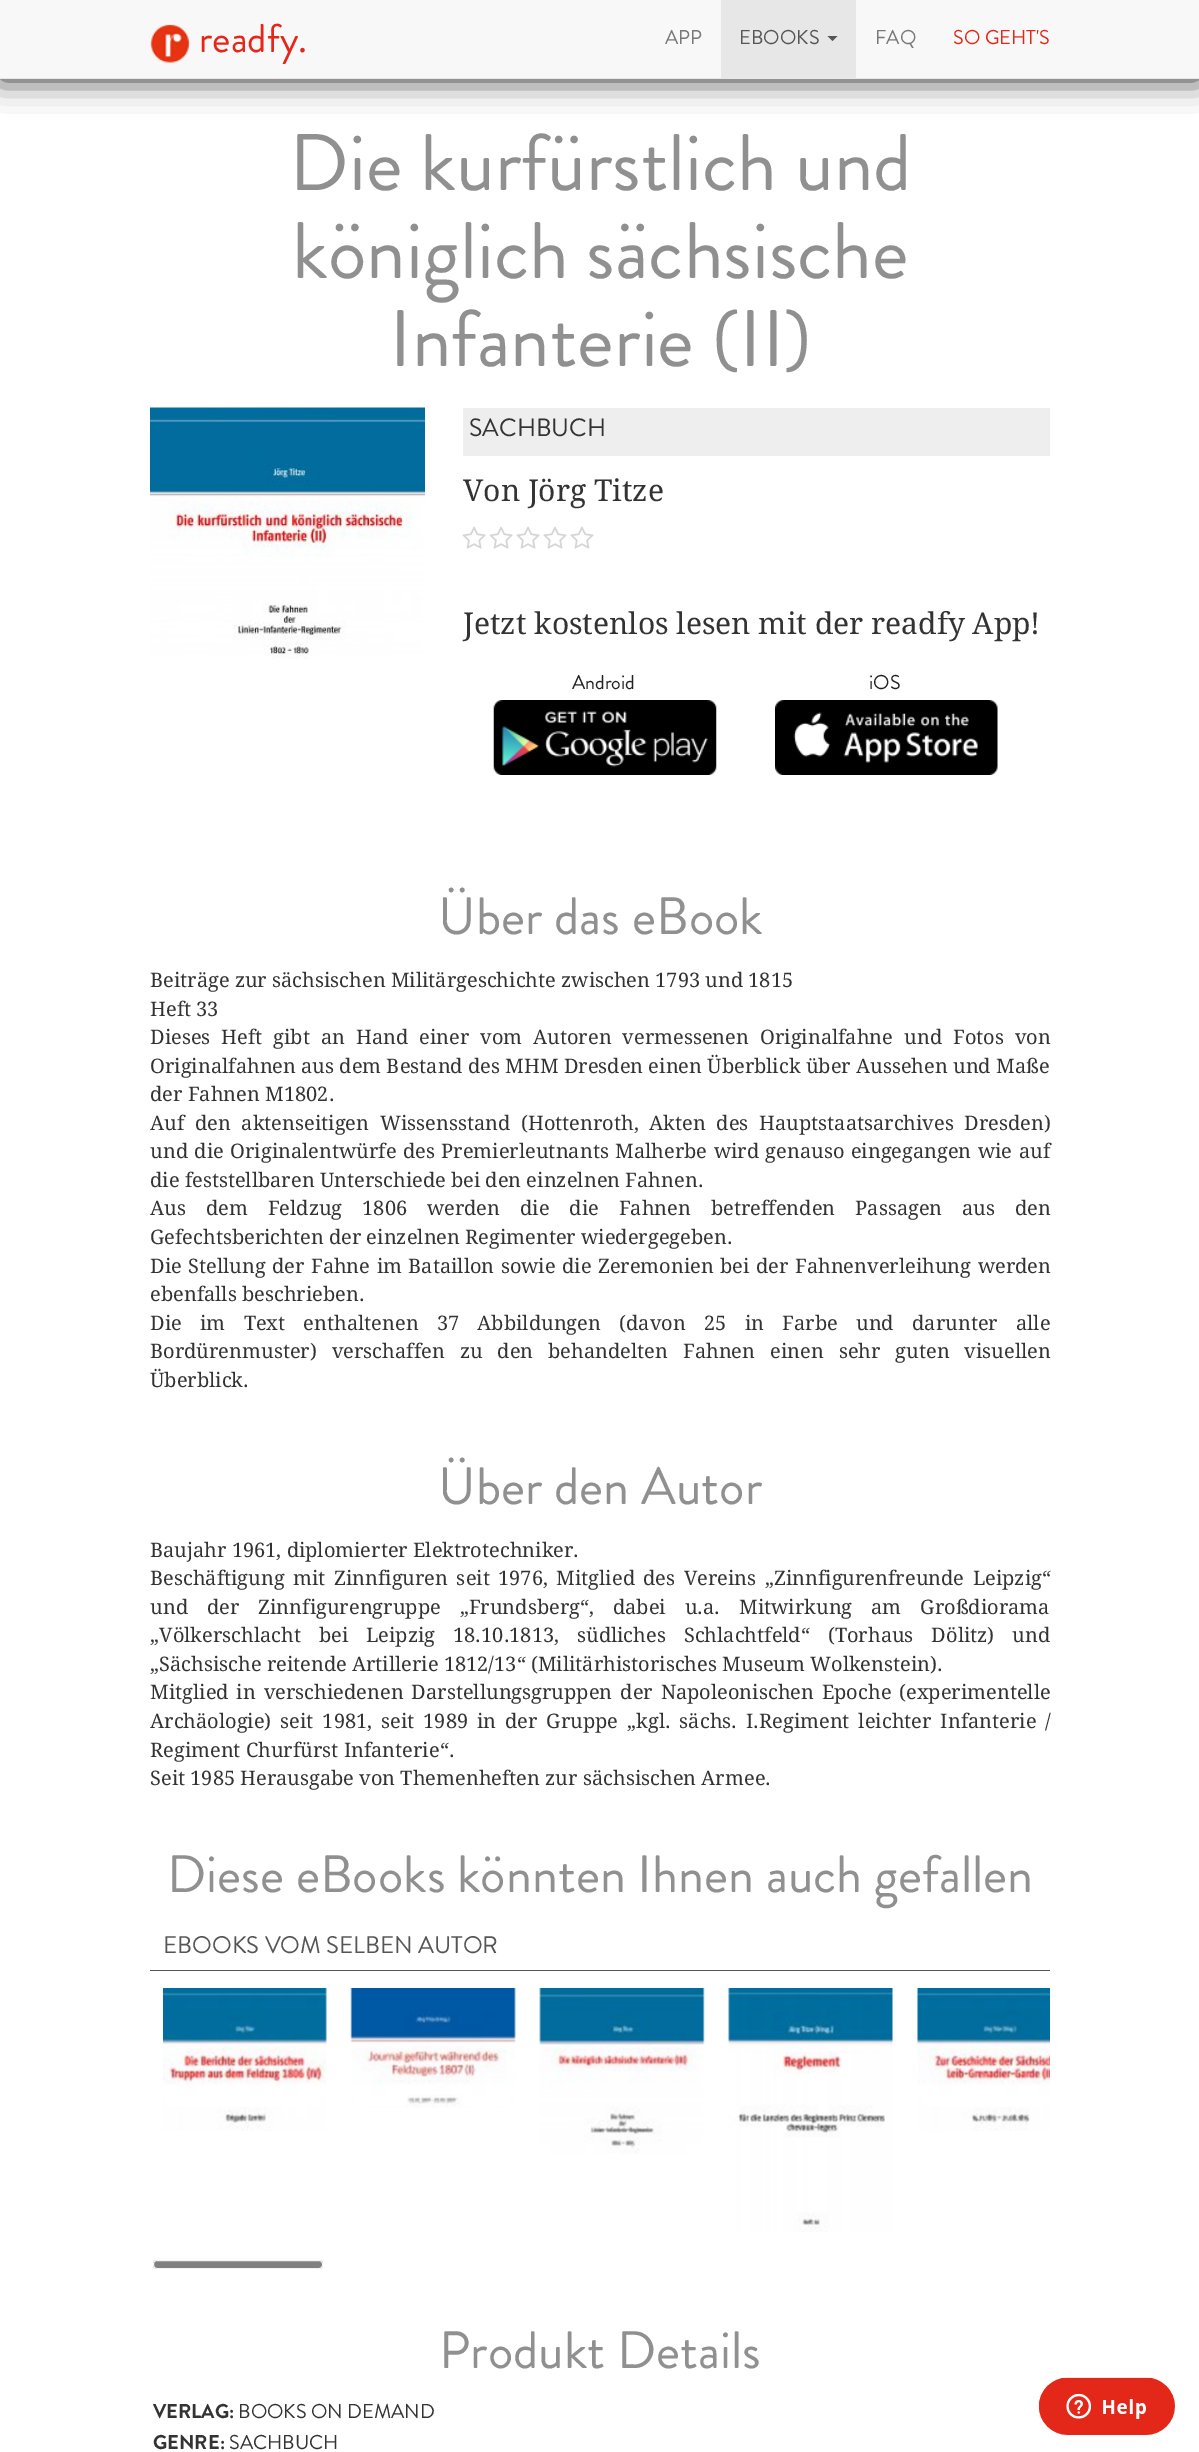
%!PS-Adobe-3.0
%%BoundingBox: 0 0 1199 2452
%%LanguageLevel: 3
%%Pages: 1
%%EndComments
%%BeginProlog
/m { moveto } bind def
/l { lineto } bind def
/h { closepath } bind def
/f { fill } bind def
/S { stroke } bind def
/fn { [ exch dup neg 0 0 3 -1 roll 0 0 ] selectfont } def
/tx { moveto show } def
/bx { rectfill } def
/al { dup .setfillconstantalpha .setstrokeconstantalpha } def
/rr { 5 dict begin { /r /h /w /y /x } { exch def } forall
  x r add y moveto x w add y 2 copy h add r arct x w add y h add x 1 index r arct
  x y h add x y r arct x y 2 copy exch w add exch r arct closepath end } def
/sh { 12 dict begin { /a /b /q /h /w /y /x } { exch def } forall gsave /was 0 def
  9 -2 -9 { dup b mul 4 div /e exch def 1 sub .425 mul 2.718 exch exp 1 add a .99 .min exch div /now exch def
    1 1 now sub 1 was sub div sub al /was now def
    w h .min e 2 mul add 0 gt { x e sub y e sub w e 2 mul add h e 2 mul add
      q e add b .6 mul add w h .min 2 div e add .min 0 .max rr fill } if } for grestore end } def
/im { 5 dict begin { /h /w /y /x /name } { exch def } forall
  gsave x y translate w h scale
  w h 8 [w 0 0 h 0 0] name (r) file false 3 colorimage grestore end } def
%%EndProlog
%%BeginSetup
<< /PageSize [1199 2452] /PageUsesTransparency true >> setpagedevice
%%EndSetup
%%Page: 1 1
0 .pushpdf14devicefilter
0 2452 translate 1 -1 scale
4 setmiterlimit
1 setgray
0 0 1199 2452 bx
0.133 setgray
0 0 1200 79 0 15.5 1 sh
0.973 setgray
0 0 1199 78 bx
0.906 setgray
0 78 1199 1 bx
(image0.raw) 150 24 40 40 im
/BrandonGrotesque-Regular 40 fn
0.89 0.153 0.098 setrgbcolor
(readfy.) 199 52 tx
/BrandonGrotesque-Regular 20 fn
0.467 setgray
(APP) 665 44 tx
0.906 setgray
721 0 135 78 bx
0.333 setgray
(EBOOKS) 739 44 tx
827.5 36 m 837.5 36 l 832.5 41 l h f
0.467 setgray
(FAQ) 875 44 tx
0.89 0.153 0.098 setrgbcolor
(SO GEHT'S) 953 44 tx
/BrandonGrotesque-Regular 80 fn
0.565 setgray
(Die kurfürstlich und) 289 190 tx
(königlich sächsische) 292 278 tx
(Infanterie \(II\)) 389 366 tx
(image1.raw) 150 407 275 252 im
0.933 setgray
463 408 587 48 bx
/BrandonGrotesque-Regular 25 fn
0.2 setgray
(SACHBUCH) 469 436 tx
/DroidSerif-Regular 30 fn
(Von Jörg Titze) 463 501 tx
(image2.raw) 462 526 132 23 im
(Jetzt kostenlos lesen mit der readfy App!) 463 634 tx
/BrandonGrotesque-Regular 20 fn
0.133 setgray
(Android) 572 689 tx
(image3.raw) 493 700 224 75 im
(iOS) 869 689 tx
(image4.raw) 775 700 223 75 im
/BrandonGrotesque-Regular 52.5 fn
0.565 setgray
(Über das eBook) 438 934 tx
/DroidSerif-Regular 20 fn
0.2 setgray
(Beiträge zur sächsischen Militärgeschichte zwischen 1793 und 1815) 150 987 tx
(Heft 33) 150 1016 tx
150 1044 m 5.75 0 32 (Dieses Heft gibt an Hand einer vom Autoren vermessenen Originalfahne und Fotos von) widthshow
(Originalfahnen aus dem Bestand des MHM Dresden einen Überblick über Aussehen und Maße) 150 1073 tx
(der Fahnen M1802.) 150 1101 tx
150 1130 m 5.5 0 32 (Auf den aktenseitigen Wissensstand \(Hottenroth, Akten des Hauptstaatsarchives Dresden\)) widthshow
150 1158 m 1.25 0 32 (und die Originalentwürfe des Premierleutnants Malherbe wird genauso eingegangen wie auf) widthshow
(die feststellbaren Unterschiede bei den einzelnen Fahnen.) 150 1187 tx
150 1215 m 14.75 0 32 (Aus dem Feldzug 1806 werden die die Fahnen betreffenden Passagen aus den) widthshow
(Gefechtsberichten der einzelnen Regimenter wiedergegeben.) 150 1244 tx
150 1273 m 1.25 0 32 (Die Stellung der Fahne im Bataillon sowie die Zeremonien bei der Fahnenverleihung werden) widthshow
(ebenfalls beschrieben.) 150 1301 tx
150 1330 m 13.1 0 32 (Die im Text enthaltenen 37 Abbildungen \(davon 25 in Farbe und darunter alle) widthshow
150 1358 m 9.75 0 32 (Bordürenmuster\) verschaffen zu den behandelten Fahnen einen sehr guten visuellen) widthshow
(Überblick.) 150 1387 tx
/BrandonGrotesque-Regular 52.5 fn
0.565 setgray
(Über den Autor) 438 1504 tx
/DroidSerif-Regular 20 fn
0.2 setgray
(Baujahr 1961, diplomierter Elektrotechniker.) 150 1557 tx
150 1585 m 3.25 0 32 (Beschäftigung mit Zinnfiguren seit 1976, Mitglied des Vereins „Zinnfigurenfreunde Leipzig“) widthshow
150 1614 m 13.75 0 32 (und der Zinnfigurengruppe „Frundsberg“, dabei u.a. Mitwirkung am Großdiorama) widthshow
150 1642 m 12.75 0 32 („Völkerschlacht bei Leipzig 18.10.1813, südliches Schlachtfeld“ \(Torhaus Dölitz\) und) widthshow
(„Sächsische reitende Artillerie 1812/13“ \(Militärhistorisches Museum Wolkenstein\).) 150 1671 tx
150 1699 m 2.75 0 32 (Mitglied in verschiedenen Darstellungsgruppen der Napoleonischen Epoche \(experimentelle) widthshow
150 1728 m 3.75 0 32 (Archäologie\) seit 1981, seit 1989 in der Gruppe „kgl. sächs. I.Regiment leichter Infanterie /) widthshow
(Regiment Churfürst Infanterie“.) 150 1757 tx
(Seit 1985 Herausgabe von Themenheften zur sächsischen Armee.) 150 1785 tx
/BrandonGrotesque-Regular 52.5 fn
0.565 setgray
(Diese eBooks könnten Ihnen auch gefallen) 167 1892 tx
/BrandonGrotesque-Regular 24 fn
0.333 setgray
(EBOOKS VOM SELBEN AUTOR) 163 1953 tx
150 1970 900 1 bx
(image5.raw) 163 1988 164 143 im
(image6.raw) 350 1988 166 120 im
(image7.raw) 539 1988 166 166 im
(image8.raw) 728 1988 165 244 im
(image9.raw) 917 1988 133 143 im
0.502 setgray
153 2260 170 9 4 rr f
0.9 al
1 setgray
153.5 2260.5 169 8 3.5 rr S
/BrandonGrotesque-Regular 52.5 fn
1 al
0.565 setgray
(Produkt Details) 439 2368 tx
/BrandonGrotesque-Bold 20 fn
0.2 setgray
(VERLAG:) 153 2418 tx
/BrandonGrotesque-Regular 20 fn
(BOOKS ON DEMAND) 238 2418 tx
/BrandonGrotesque-Bold 20 fn
(GENRE:) 153 2449 tx
/BrandonGrotesque-Regular 20 fn
(SACHBUCH) 229 2449 tx
(image10.raw) 1039 2377 136 58 im
.poppdf14devicefilter showpage
%%EOF
